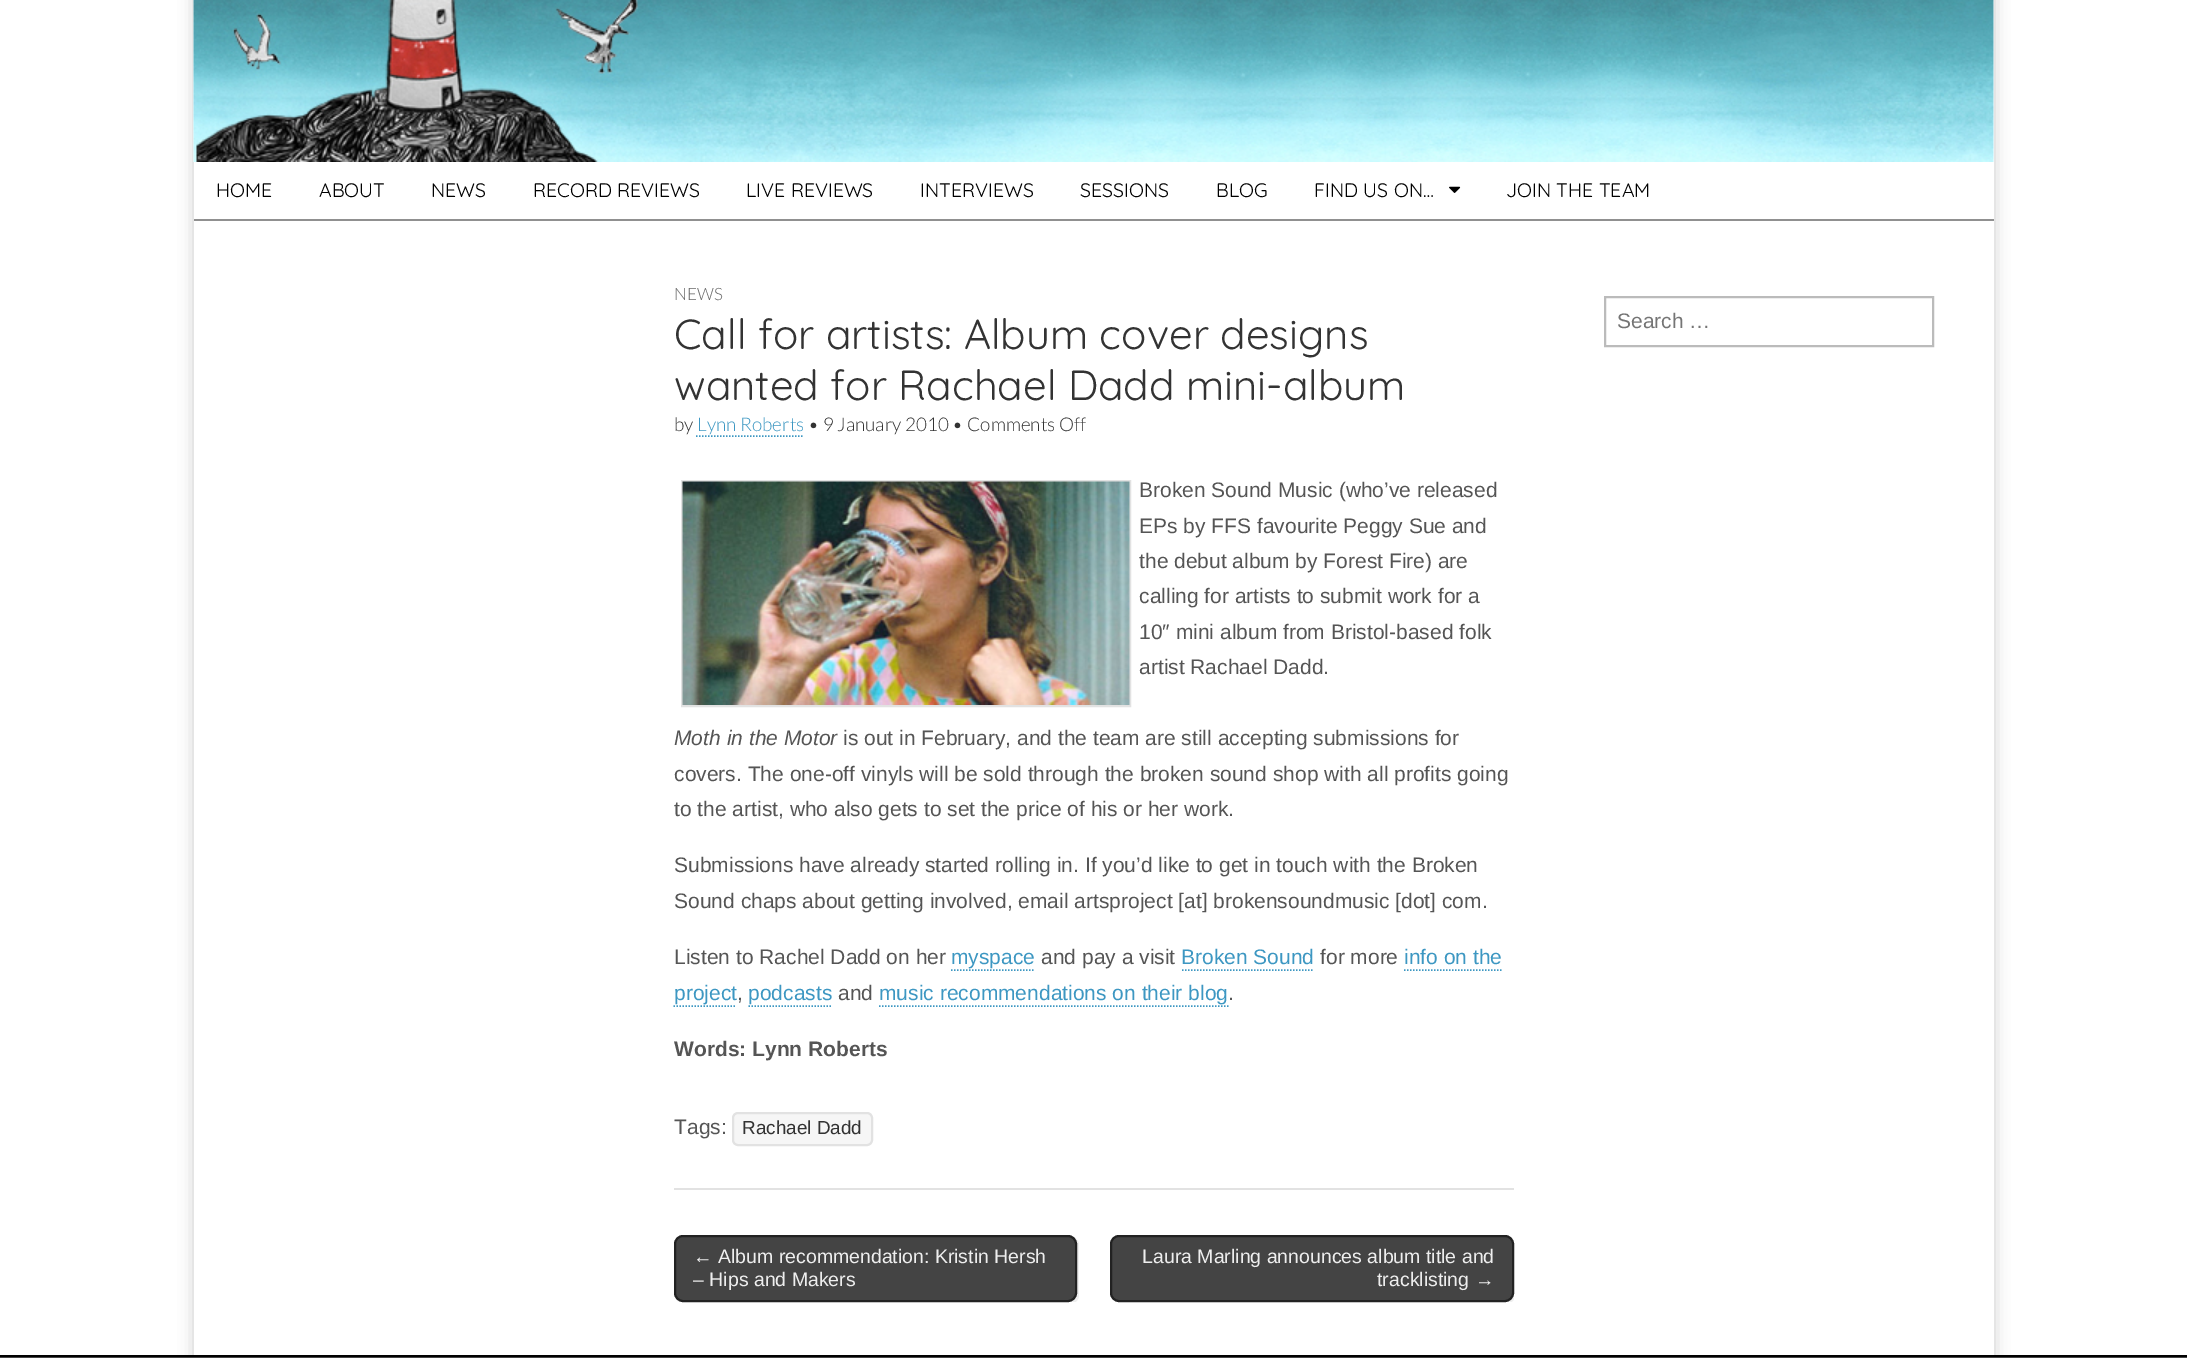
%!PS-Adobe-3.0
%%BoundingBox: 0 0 2187 1358
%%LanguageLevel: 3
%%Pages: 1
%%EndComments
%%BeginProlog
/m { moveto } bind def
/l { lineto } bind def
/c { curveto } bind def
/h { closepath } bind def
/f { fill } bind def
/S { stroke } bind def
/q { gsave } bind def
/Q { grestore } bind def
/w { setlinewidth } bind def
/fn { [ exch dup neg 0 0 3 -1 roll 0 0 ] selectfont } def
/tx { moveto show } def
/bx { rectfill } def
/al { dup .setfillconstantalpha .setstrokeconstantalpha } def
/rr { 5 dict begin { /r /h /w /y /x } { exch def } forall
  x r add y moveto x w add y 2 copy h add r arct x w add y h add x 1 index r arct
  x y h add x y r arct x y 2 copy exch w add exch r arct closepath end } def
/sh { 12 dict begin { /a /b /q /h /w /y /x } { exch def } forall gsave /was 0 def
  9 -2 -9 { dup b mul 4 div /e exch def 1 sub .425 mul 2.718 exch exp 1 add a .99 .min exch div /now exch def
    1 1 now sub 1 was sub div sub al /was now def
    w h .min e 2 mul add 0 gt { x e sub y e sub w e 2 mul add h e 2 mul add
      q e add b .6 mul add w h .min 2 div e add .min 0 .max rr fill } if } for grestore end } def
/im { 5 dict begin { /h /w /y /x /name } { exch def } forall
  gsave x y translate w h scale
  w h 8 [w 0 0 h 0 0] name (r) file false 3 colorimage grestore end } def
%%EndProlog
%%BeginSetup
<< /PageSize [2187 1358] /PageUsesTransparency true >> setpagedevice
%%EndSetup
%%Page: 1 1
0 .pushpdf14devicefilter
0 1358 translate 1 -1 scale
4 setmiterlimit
1 setgray
0 0 2187 1358 bx
0 setgray
194 -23 1800 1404 0 7.5 0.2 sh
1 setgray
194 0 1800 1355 bx
(image0.raw) 193 0 1801 162 im
0.565 setgray
194 219 1800 2 bx
/Quicksand-Regular 19.5 fn
0 setgray
(HOME) 216 197 tx
(ABOUT) 319 197 tx
(NEWS) 431 197 tx
(RECORD REVIEWS) 533 197 tx
(LIVE REVIEWS) 746 197 tx
(INTERVIEWS) 920 197 tx
(SESSIONS) 1080 197 tx
(BLOG) 1216 197 tx
(FIND US ON…) 1314 197 tx
(image1.raw) 1449 186 12 7 im
(JOIN THE TEAM) 1506 197 tx
0.886 setgray
674 1188 840 2 bx
/Lato-Light 17 fn
0.4 setgray
(NEWS) 674 300 tx
/Quicksand-Regular 42 fn
0.2 setgray
(Call for artists: Album cover designs) 674 349 tx
(wanted for Rachael Dadd mini-album) 674 400 tx
/Lato-Light 18.9 fn
(by) 674 431 tx
0.239 0.592 0.761 setrgbcolor
(Lynn Roberts) 697 431 tx
1.5 w
[1.5 1.5] 0 setdash
696 436 m 804 436 l S
0.2 setgray
(• 9 January 2010 • Comments Off) 808 431 tx
0.886 setgray
2 w
[] 0 setdash
682 481 448 225 rectstroke
(image2.raw) 682 481 448 224 im
/LiberationSans-Regular 21 fn
0.333 setgray
(Broken Sound Music \(who’ve released) 1139 497 tx
(EPs by FFS favourite Peggy Sue and) 1139 533 tx
(the debut album by Forest Fire\) are) 1139 568 tx
(calling for artists to submit work for a) 1139 603 tx
(10″ mini album from Bristol-based folk) 1139 639 tx
(artist Rachael Dadd.) 1139 674 tx
/LiberationSans-Italic 21 fn
(Moth in the Motor) 674 745 tx
/LiberationSans-Regular 21 fn
(is out in February, and the team are still accepting submissions for) 843 745 tx
(covers. The one-off vinyls will be sold through the broken sound shop with all profits going) 674 781 tx
(to the artist, who also gets to set the price of his or her work.) 674 816 tx
(Submissions have already started rolling in. If you’d like to get in touch with the Broken) 674 872 tx
(Sound chaps about getting involved, email artsproject [at] brokensoundmusic [dot] com.) 674 908 tx
(Listen to Rachel Dadd on her) 674 964 tx
0.239 0.592 0.761 setrgbcolor
(myspace) 951 964 tx
1.5 w
[1.5 1.5] 0 setdash
951 970 m 1035 970 l S
0.333 setgray
(and pay a visit) 1041 964 tx
0.239 0.592 0.761 setrgbcolor
(Broken Sound) 1181 964 tx
1182 970 m 1314 970 l S
0.333 setgray
(for more) 1320 964 tx
0.239 0.592 0.761 setrgbcolor
(info on the) 1404 964 tx
1404 970 m 1503 970 l S
(project) 674 1000 tx
673.5 1006 m 736.5 1006 l S
0.333 setgray
(,) 737 1000 tx
0.239 0.592 0.761 setrgbcolor
(podcasts) 748 1000 tx
748.5 1006 m 832.5 1006 l S
0.333 setgray
(and) 838 1000 tx
0.239 0.592 0.761 setrgbcolor
(music recommendations on their blog) 879 1000 tx
879 1006 m 1228.5 1006 l S
0.333 setgray
(.) 1228 1000 tx
/LiberationSans-Bold 21 fn
(Words: Lynn Roberts) 674 1056 tx
/LiberationSans-Regular 21 fn
(Tags:) 674 1134 tx
0.965 setgray
733 1113 139 32 5 rr q f Q
0.886 setgray
2 w
[] 0 setdash
S
/LiberationSans-Regular 18.9 fn
0.2 setgray
(Rachael Dadd) 742 1134 tx
q
674 1235 840 67 rectclip
0.933 setgray
676 1299 m 678 1302 681 1304 684 1304 c 1070 1304 l 1075 1304 1079 1300 1079 1295 c 1079 1245 l 1079 1242 1077 1239 1074 1237 c 1076 1239 1077 1241 1077 1244 c 1077 1293 l 1077 1298 1073 1302 1068 1302 c 682 1302 l 680 1302 678 1301 676 1299 c h f
Q
0.267 setgray
675 1236 401 65 8 rr q f Q
0.133 setgray
S
/LiberationSans-Regular 19.5 fn
0.933 setgray
(← Album recommendation: Kristin Hersh) 693 1263 tx
(– Hips and Makers) 693 1286 tx
q
674 1235 840 67 rectclip
1114 1300 m 1115 1303 1118 1304 1121 1304 c 1506 1304 l 1511 1304 1515 1300 1515 1295 c 1515 1245 l 1515 1242 1514 1240 1512 1238 c 1513 1239 1514 1241 1514 1244 c 1514 1293 l 1514 1298 1509 1302 1504 1302 c 1119 1302 l 1117 1302 1115 1301 1114 1300 c h f
Q
0.267 setgray
1111 1236 402 65 8 rr q f Q
0.133 setgray
S
0.933 setgray
(Laura Marling announces album title and) 1142 1263 tx
(tracklisting →) 1377 1286 tx
0.733 setgray
1605 297 328 49 rectstroke
/LiberationSans-Regular 21 fn
0.459 setgray
(Search …) 1617 328 tx
0.267 setgray
0 1357 2187 1 bx
0 setgray
0 1355 2187 2 bx
.poppdf14devicefilter showpage
%%EOF
